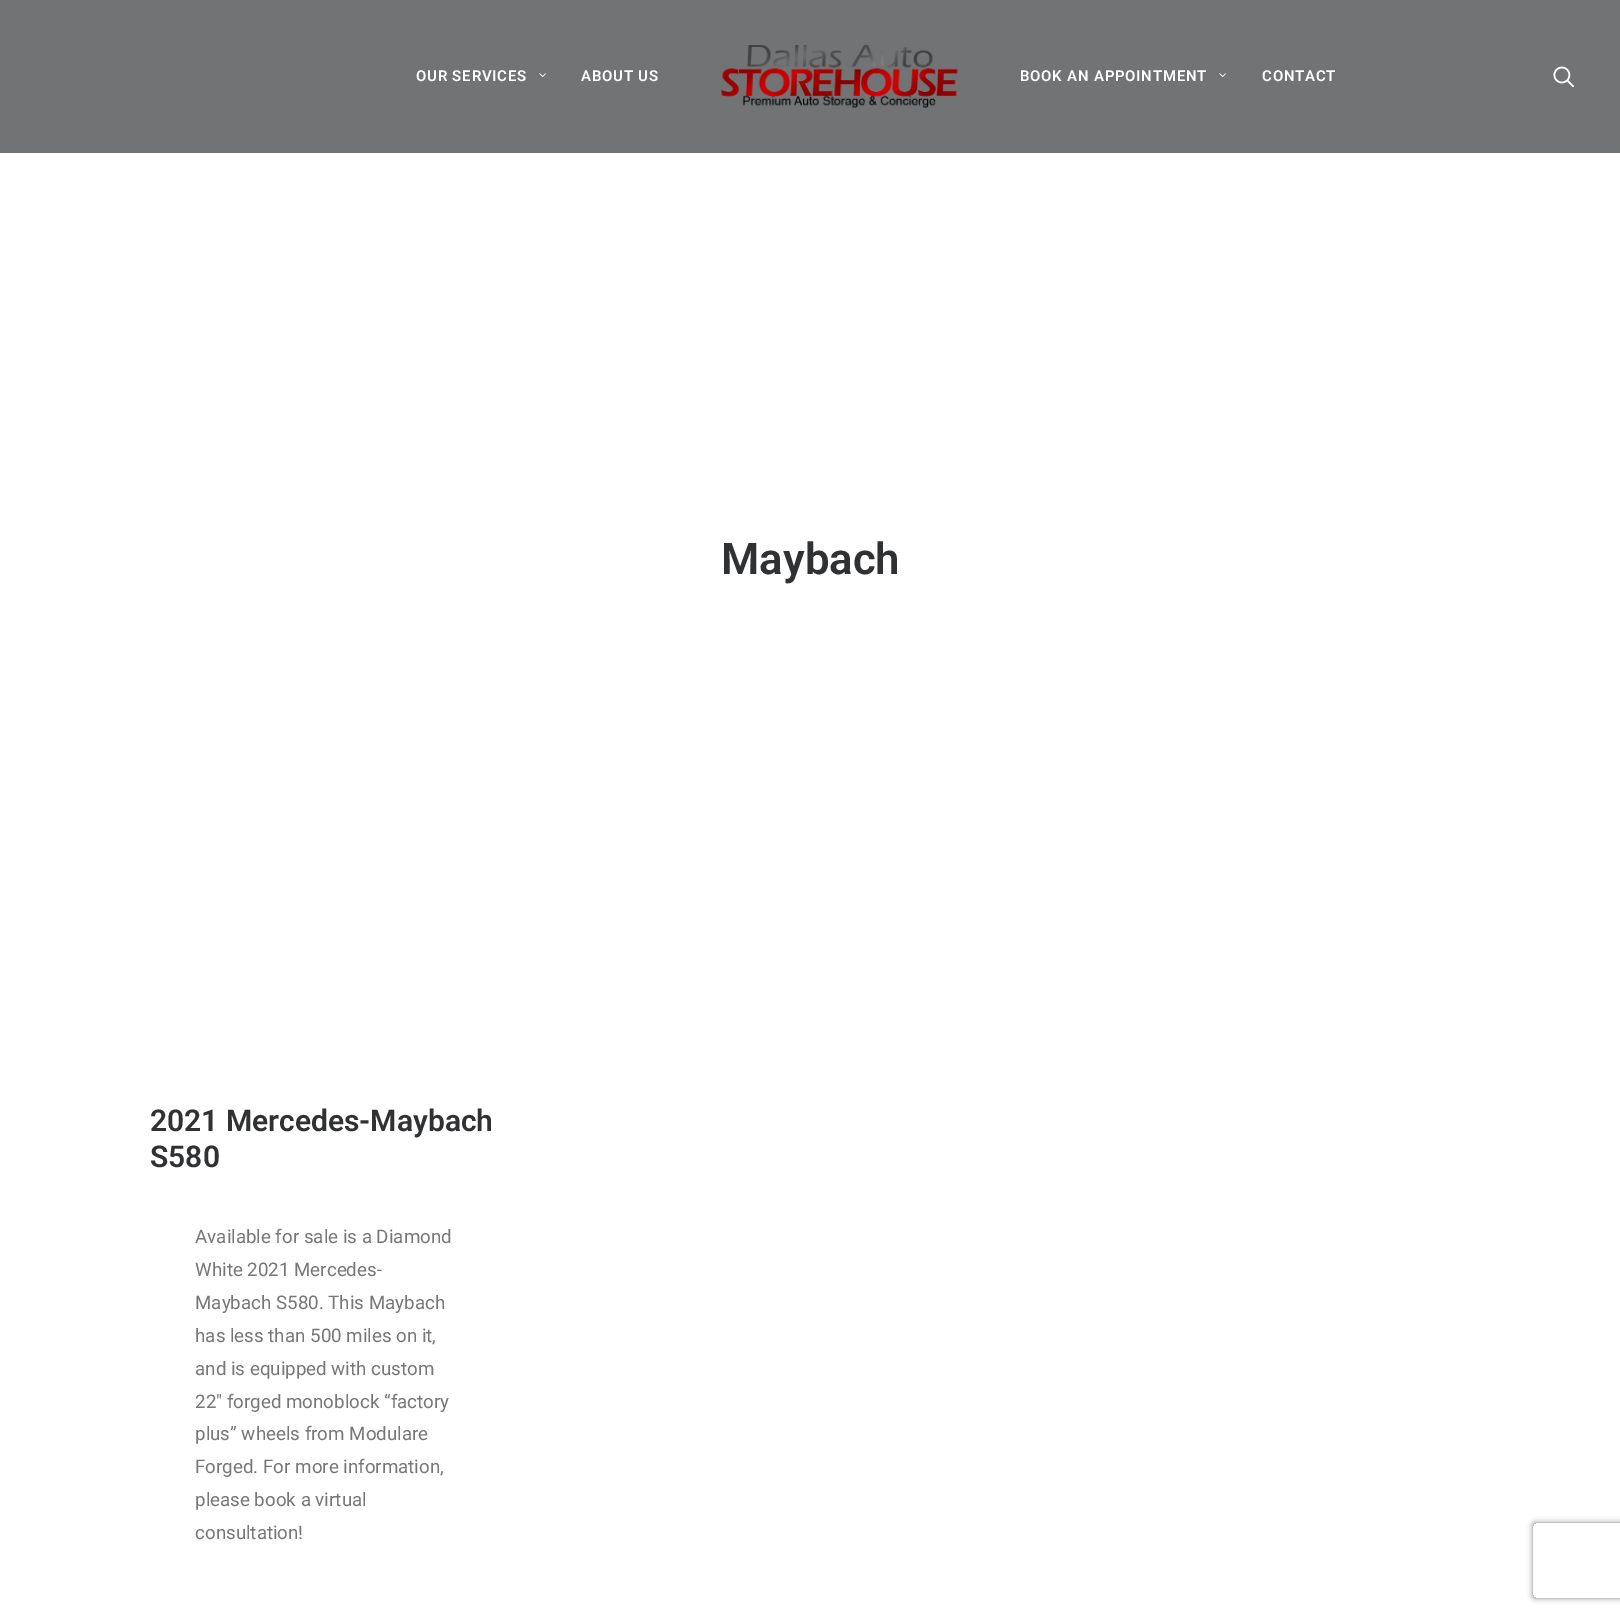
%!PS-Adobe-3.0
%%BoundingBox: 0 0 1620 1615
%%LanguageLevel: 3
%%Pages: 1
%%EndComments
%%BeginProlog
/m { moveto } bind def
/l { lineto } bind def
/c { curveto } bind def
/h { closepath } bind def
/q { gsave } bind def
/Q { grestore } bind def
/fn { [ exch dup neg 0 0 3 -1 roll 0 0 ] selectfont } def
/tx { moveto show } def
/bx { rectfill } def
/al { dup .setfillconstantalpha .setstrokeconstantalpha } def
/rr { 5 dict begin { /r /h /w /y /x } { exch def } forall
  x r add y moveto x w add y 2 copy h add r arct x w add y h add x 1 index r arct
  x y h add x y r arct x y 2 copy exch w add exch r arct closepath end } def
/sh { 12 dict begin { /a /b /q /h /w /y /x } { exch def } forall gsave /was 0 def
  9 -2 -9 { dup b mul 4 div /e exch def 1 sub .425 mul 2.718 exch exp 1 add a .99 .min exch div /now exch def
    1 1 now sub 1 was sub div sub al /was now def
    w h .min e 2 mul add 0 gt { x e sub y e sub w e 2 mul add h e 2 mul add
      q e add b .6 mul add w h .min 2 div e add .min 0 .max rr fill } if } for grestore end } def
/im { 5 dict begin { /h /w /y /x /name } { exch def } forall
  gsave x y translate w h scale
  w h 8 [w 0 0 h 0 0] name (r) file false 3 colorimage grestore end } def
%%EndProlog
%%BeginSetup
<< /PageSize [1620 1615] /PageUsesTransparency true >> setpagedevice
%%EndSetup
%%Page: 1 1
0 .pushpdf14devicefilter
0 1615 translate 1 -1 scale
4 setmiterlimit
1 setgray
0 0 1620 1615 bx
0.447 0.451 0.459 setrgbcolor
0 0 1620 153 bx
/Roboto-SemiBold 15 fn
1 setgray
416 81 m 0.75 0 (OUR SERVICES) ashow
(image0.raw) 539 73 7 5 im
581 81 m 0.75 0 (ABOUT US) ashow
(image1.raw) 721 45 237 63 im
1020 81 m 0.75 0 (BOOK AN APPOINTMENT) ashow
(image0.raw) 1219 73 7 5 im
1262 81 m 0.75 0 (CONTACT) ashow
(image2.raw) 1553 66 21 22 im
/Roboto-SemiBold 43.75 fn
0.188 0.192 0.2 setrgbcolor
(Maybach) 721 574 tx
/Roboto-SemiBold 30 fn
(2021 Mercedes-Maybach) 150 1131 tx
(S580) 150 1167 tx
/Roboto-Regular 18.75 fn
0.467 setgray
(Available for sale is a Diamond) 195 1243 tx
(White 2021 Mercedes-) 195 1276 tx
(Maybach S580. This Maybach) 195 1309 tx
(has less than 500 miles on it,) 195 1342 tx
(and is equipped with custom) 195 1375 tx
(22″ forged monoblock “factory) 195 1408 tx
(plus” wheels from Modulare) 195 1440 tx
(Forged. For more information,) 195 1473 tx
(please book a virtual) 195 1506 tx
(consultation!) 195 1539 tx
q
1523 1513 m 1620 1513 l 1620 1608 l 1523 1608 l h 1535.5 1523 m 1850.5 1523 l 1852 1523 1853 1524 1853 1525.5 c 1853 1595.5 l 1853 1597 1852 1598 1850.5 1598 c 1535.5 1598 l 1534 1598 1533 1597 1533 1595.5 c 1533 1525.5 l 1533 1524 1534 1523 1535.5 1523 c h eoclip newpath
0.502 setgray
1533 1523 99 75 2.5 3 1 sh
Q
.poppdf14devicefilter showpage
%%EOF
